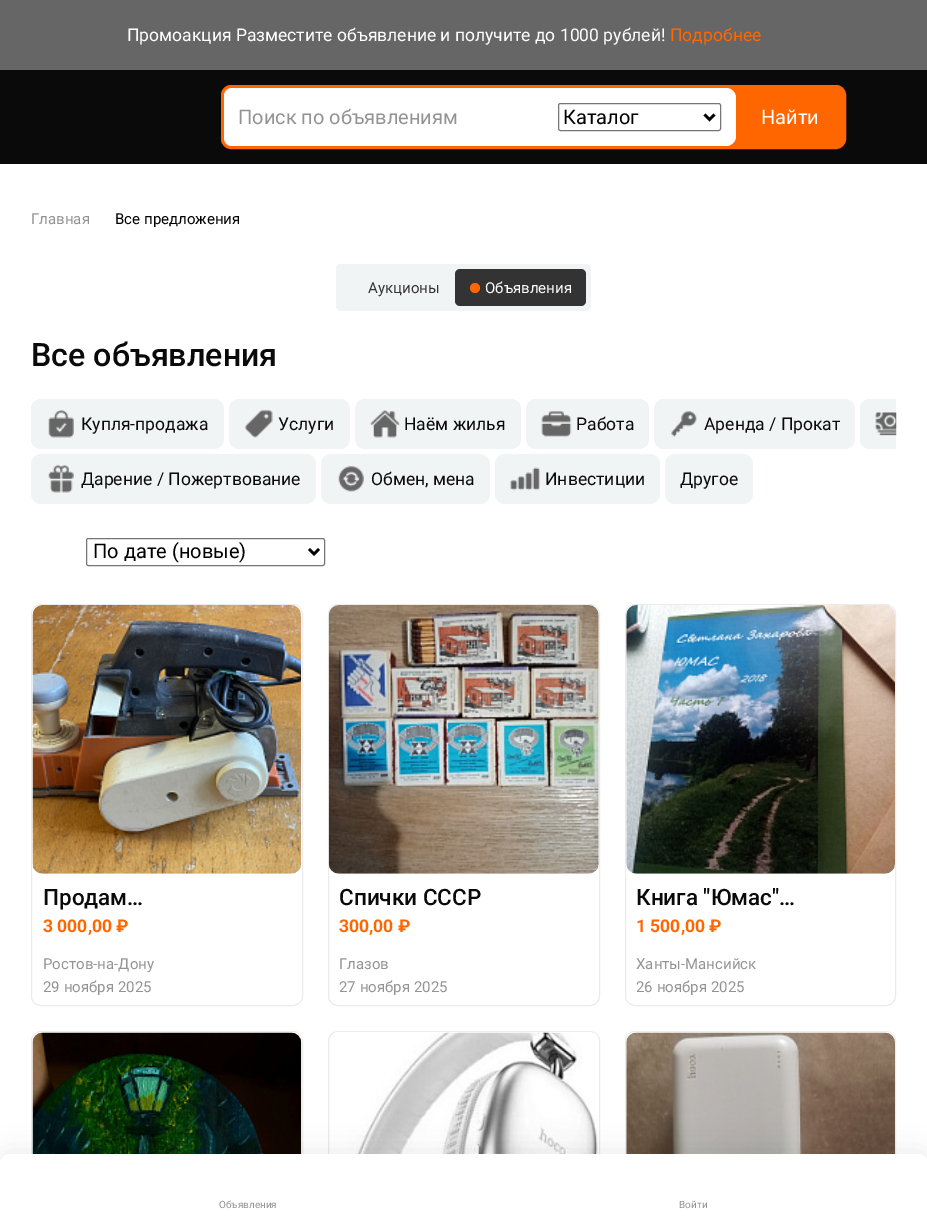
%!PS-Adobe-3.0
%%BoundingBox: 0 0 927 1219
%%LanguageLevel: 3
%%Pages: 1
%%EndComments
%%BeginProlog
/m { moveto } bind def
/l { lineto } bind def
/c { curveto } bind def
/h { closepath } bind def
/f { fill } bind def
/S { stroke } bind def
/q { gsave } bind def
/Q { grestore } bind def
/w { setlinewidth } bind def
/fn { [ exch dup neg 0 0 3 -1 roll 0 0 ] selectfont } def
/tx { moveto show } def
/bx { rectfill } def
/al { dup .setfillconstantalpha .setstrokeconstantalpha } def
/ci { newpath 0 360 arc closepath } def
/rr { 5 dict begin { /r /h /w /y /x } { exch def } forall
  x r add y moveto x w add y 2 copy h add r arct x w add y h add x 1 index r arct
  x y h add x y r arct x y 2 copy exch w add exch r arct closepath end } def
/sh { 12 dict begin { /a /b /q /h /w /y /x } { exch def } forall gsave /was 0 def
  9 -2 -9 { dup b mul 4 div /e exch def 1 sub .425 mul 2.718 exch exp 1 add a .99 .min exch div /now exch def
    1 1 now sub 1 was sub div sub al /was now def
    w h .min e 2 mul add 0 gt { x e sub y e sub w e 2 mul add h e 2 mul add
      q e add b .6 mul add w h .min 2 div e add .min 0 .max rr fill } if } for grestore end } def
/im { 5 dict begin { /h /w /y /x /name } { exch def } forall
  gsave x y translate w h scale
  w h 8 [w 0 0 h 0 0] name (r) file false 3 colorimage grestore end } def
%%EndProlog
%%BeginSetup
<< /PageSize [927 1219] /PageUsesTransparency true >> setpagedevice
%%EndSetup
%%Page: 1 1
0 .pushpdf14devicefilter
0 1219 translate 1 -1 scale
4 setmiterlimit
1 setgray
0 0 927 1219 bx
0.4 setgray
0 0 927 70 bx
/Roboto-Regular 17.5 fn
1 setgray
(Промоакция Разместите объявление и получите до 1000 рублей!) 127 41 tx
1 0.4 0 setrgbcolor
(Подробнее) 670 41 tx
0.039 setgray
0 70 927 94 bx
1 0.4 0 setrgbcolor
222.5 86.5 622 61 8.5 rr q f Q
3 w
S
1 setgray
232 88 m 726 88 l 731.5 88 736 92.5 736 98 c 736 136 l 736 141.5 731.5 146 726 146 c 232 146 l 227.5 146 224 142.5 224 138 c 224 96 l 224 91.5 227.5 88 232 88 c h f
/Roboto-Regular 20 fn
0.576 setgray
(Поиск по объявлениям) 238 124 tx
0.463 setgray
1 w
558.5 103.5 162 27 2 rr S
0 setgray
2.5 w
704.5 114.5 m 709.5 119.5 l 714.5 114.5 l S
(Каталог) 563 124 tx
1 setgray
(Найти) 761 124 tx
/Roboto-Regular 15 fn
0.576 setgray
(Главная) 31 224 tx
0 setgray
(Все предложения) 115 224 tx
0.945 0.957 0.957 setrgbcolor
336 264 255 47 5 rr f
0.2 setgray
(Аукционы) 368 293 tx
455 269 131 37 5 rr f
1 0.4 0 setrgbcolor
475 288 5 ci f
1 setgray
(Объявления) 485 293 tx
/Roboto-Medium 32.25 fn
0.039 setgray
(Все объявления) 31 366 tx
0.945 0.957 0.957 setrgbcolor
31 399 193 50 10 rr f
(image0.raw) 48 410 26 28 im
/Roboto-Regular 17.5 fn
0.039 setgray
(Купля-продажа) 81 430 tx
0.945 0.957 0.957 setrgbcolor
229 399 121 50 10 rr f
(image1.raw) 244 409 29 29 im
0.039 setgray
(Услуги) 278 430 tx
0.945 0.957 0.957 setrgbcolor
355 399 166 50 10 rr f
(image2.raw) 370 410 30 28 im
0.039 setgray
(Наём жилья) 404 430 tx
0.945 0.957 0.957 setrgbcolor
526 399 123 50 10 rr f
(image3.raw) 541 411 31 26 im
0.039 setgray
(Работа) 576 430 tx
0.945 0.957 0.957 setrgbcolor
654 399 201 50 10 rr f
(image4.raw) 671 411 26 26 im
0.039 setgray
(Аренда / Прокат) 704 430 tx
0.945 0.957 0.957 setrgbcolor
870 399 m 896 399 l 896 449 l 870 449 l 864.5 449 860 444.5 860 439 c 860 409 l 860 403.5 864.5 399 870 399 c h f
(image5.raw) 875 412 22 24 im
31 454 285 50 10 rr f
(image6.raw) 48 464 26 29 im
0.039 setgray
(Дарение / Пожертвование) 81 485 tx
0.945 0.957 0.957 setrgbcolor
321 454 169 50 10 rr f
(image7.raw) 338 466 26 26 im
0.039 setgray
(Обмен, мена) 371 485 tx
0.945 0.957 0.957 setrgbcolor
495 454 165 50 10 rr f
(image8.raw) 510 467 30 24 im
0.039 setgray
(Инвестиции) 545 485 tx
0.945 0.957 0.957 setrgbcolor
665 454 88 50 10 rr f
0.039 setgray
(Другое) 680 485 tx
0.463 setgray
1 w
86.5 538.5 238 27 2 rr S
0 setgray
2.5 w
309 549 m 314 554 l 319 549 l S
/Roboto-Regular 20 fn
(По дате \(новые\)) 93 558 tx
0.922 setgray
1 w
31.5 604.5 271 401 9.5 rr S
(image9.raw) 32 605 270 269 im
/Roboto-Medium 22.5 fn
0.039 setgray
(Продам…) 43 905 tx
/Roboto-Bold 17.5 fn
1 0.4 0 setrgbcolor
(3 000,00 ₽) 43 932 tx
/Roboto-Regular 15 fn
0.576 setgray
(Ростов-на-Дону) 43 969 tx
(29 ноября 2025) 43 992 tx
0.922 setgray
328.5 604.5 271 401 9.5 rr S
(image10.raw) 328 605 271 269 im
/Roboto-Medium 22.5 fn
0.039 setgray
(Спички СССР) 339 905 tx
/Roboto-Bold 17.5 fn
1 0.4 0 setrgbcolor
(300,00 ₽) 339 932 tx
/Roboto-Regular 15 fn
0.576 setgray
(Глазов) 339 969 tx
(27 ноября 2025) 339 992 tx
0.922 setgray
625.5 604.5 270 401 9.5 rr S
(image11.raw) 626 605 269 269 im
/Roboto-Medium 22.5 fn
0.039 setgray
(Книга "Юмас"…) 636 905 tx
/Roboto-Bold 17.5 fn
1 0.4 0 setrgbcolor
(1 500,00 ₽) 636 932 tx
/Roboto-Regular 15 fn
0.576 setgray
(Ханты-Мансийск) 636 969 tx
(26 ноября 2025) 636 992 tx
0.922 setgray
31.5 1031.5 271 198 9.5 rr S
(image12.raw) 32 1032 270 122 im
328.5 1031.5 271 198 9.5 rr S
(image13.raw) 335 1032 263 122 im
625.5 1031.5 270 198 9.5 rr S
(image14.raw) 626 1032 269 122 im
0 setgray
0 1151 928 67 10 12.5 0.07 sh
1 setgray
10 1154 m 918 1154 l 923.5 1154 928 1158.5 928 1164 c 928 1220 l 0 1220 l 0 1164 l 0 1158.5 4.5 1154 10 1154 c h f
/Roboto-Regular 10 fn
0.576 setgray
(Объявления) 219 1208 tx
(Войти) 679 1208 tx
.poppdf14devicefilter showpage
%%EOF
